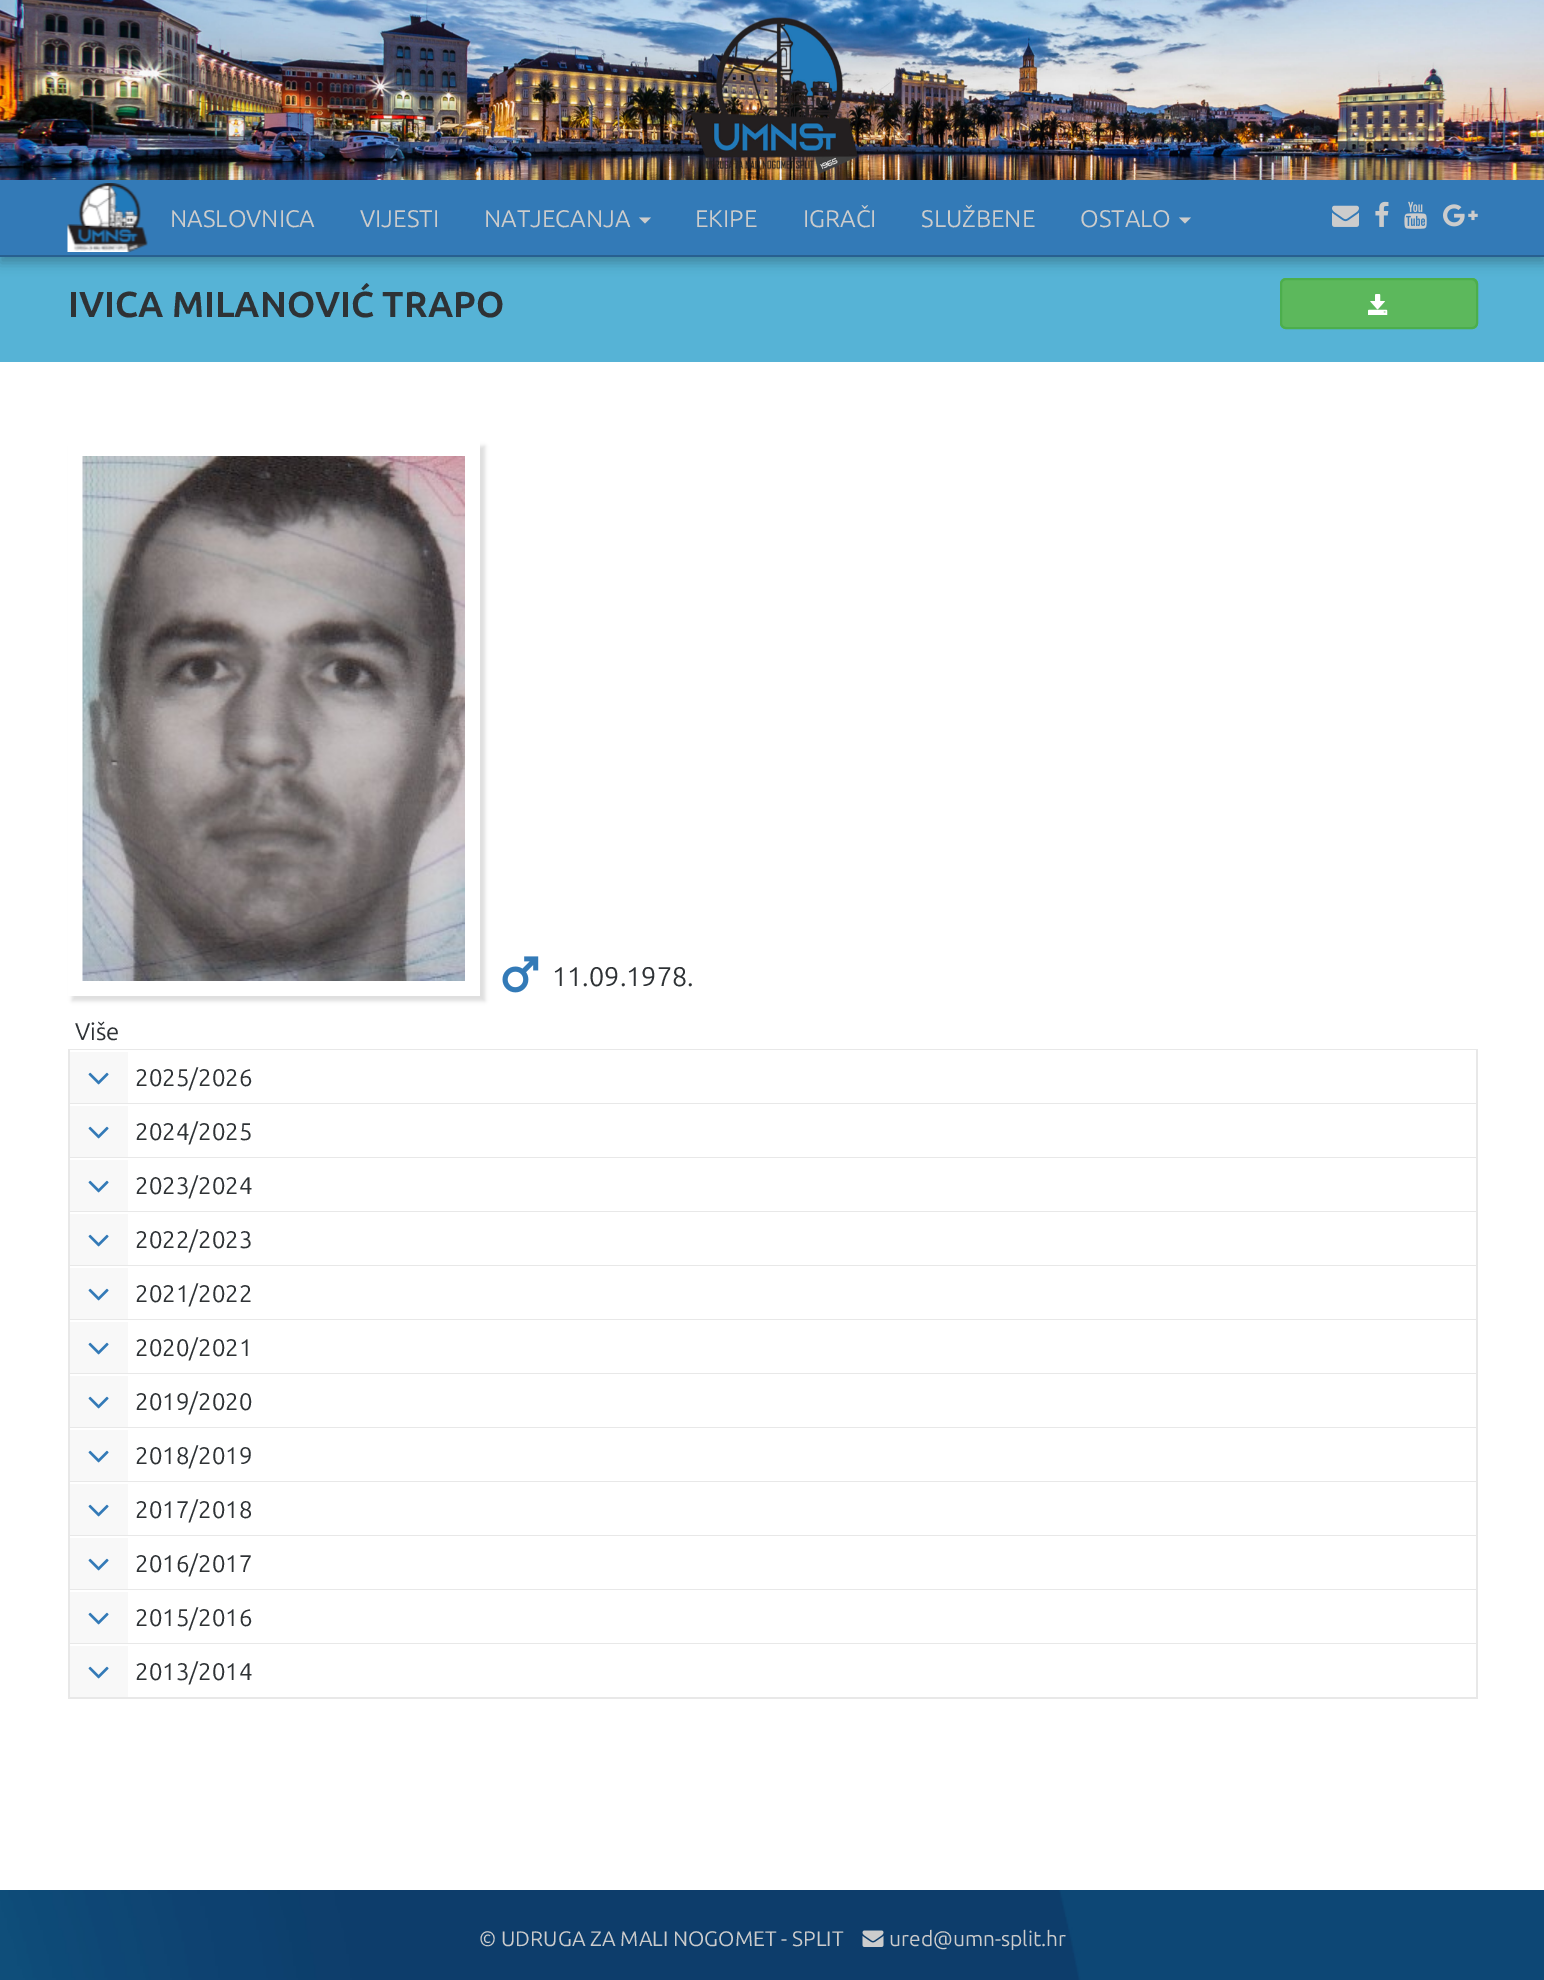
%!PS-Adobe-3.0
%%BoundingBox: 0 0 1544 1980
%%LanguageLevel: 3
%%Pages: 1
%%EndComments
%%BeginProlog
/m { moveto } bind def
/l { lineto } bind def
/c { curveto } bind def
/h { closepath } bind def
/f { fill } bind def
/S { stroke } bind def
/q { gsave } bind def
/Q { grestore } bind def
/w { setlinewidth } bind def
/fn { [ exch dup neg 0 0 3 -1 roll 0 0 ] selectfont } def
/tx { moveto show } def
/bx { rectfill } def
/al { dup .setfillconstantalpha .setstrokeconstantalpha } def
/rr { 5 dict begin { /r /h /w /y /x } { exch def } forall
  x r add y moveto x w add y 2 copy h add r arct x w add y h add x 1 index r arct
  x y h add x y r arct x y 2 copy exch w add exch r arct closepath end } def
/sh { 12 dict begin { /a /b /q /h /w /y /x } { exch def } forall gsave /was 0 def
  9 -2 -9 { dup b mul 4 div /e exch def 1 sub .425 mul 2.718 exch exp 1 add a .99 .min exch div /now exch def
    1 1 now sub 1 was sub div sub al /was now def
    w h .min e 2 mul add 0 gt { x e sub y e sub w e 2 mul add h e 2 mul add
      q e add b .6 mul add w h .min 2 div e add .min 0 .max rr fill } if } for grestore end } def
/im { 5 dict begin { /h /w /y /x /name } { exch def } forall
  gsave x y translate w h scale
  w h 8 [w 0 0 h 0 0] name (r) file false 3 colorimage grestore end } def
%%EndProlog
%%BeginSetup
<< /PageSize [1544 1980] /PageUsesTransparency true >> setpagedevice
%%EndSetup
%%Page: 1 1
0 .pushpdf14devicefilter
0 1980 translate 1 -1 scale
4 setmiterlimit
1 setgray
0 0 1544 1980 bx
0.337 0.702 0.839 setrgbcolor
0 179 1544 183 bx
(image0.raw) 0 0 1544 180 im
0.361 0.722 0.361 setrgbcolor
1280 278 198 51 6 rr f
0.333 0.667 0.333 setrgbcolor
1286 280 m 1472 280 l 1474 280 1476 283 1476 285 c 1476 284 l 1476 281 1474 279 1471 279 c 1286 279 l 1283 279 1281 281 1281 284 c 1281 285 l 1281 283 1283 280 1286 280 c h f
0.298 0.682 0.298 setrgbcolor
2 w
1281 279 196 49 5 rr S
0 setgray
0 186 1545 77 0 6 0.25 sh
0.2 0.478 0.718 setrgbcolor
0 180 1544 75 bx
0.157 0.376 0.565 setrgbcolor
0 255 1544 2 bx
(image1.raw) 67 183 81 69 im
/Ubuntu-Regular 24 fn
0.8 setgray
(NASLOVNICA) 170 227 tx
(VIJESTI) 360 227 tx
(NATJECANJA) 484 227 tx
639 217.5 m 651 217.5 l 645 223.5 l h f
(EKIPE) 695 227 tx
(IGRAČI) 803 227 tx
(SLUŽBENE) 921 227 tx
(OSTALO) 1080 227 tx
1179 217.5 m 1191 217.5 l 1185 223.5 l h f
(image2.raw) 1332 205 27 22 im
(image3.raw) 1375 201 14 26 im
(image4.raw) 1404 201 23 28 im
(image5.raw) 1443 204 35 23 im
/Ubuntu-Bold 36 fn
0.18 0.196 0.208 setrgbcolor
(IVICA MILANOVIĆ TRAPO) 68 317 tx
(image6.raw) 1368 294 20 21 im
q
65 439 m 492 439 l 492 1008 l 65 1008 l h 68 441 m 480 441 l 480 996 l 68 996 l h eoclip newpath
0.867 setgray
72 446 413 555 0 2 1 sh
Q
(image7.raw) 82 456 383 525 im
(image8.raw) 502 956 37 37 im
/Ubuntu-Regular 27 fn
(11.09.1978.) 552 986 tx
0.91 setgray
68 1049 1410 1 bx
/Ubuntu-Regular 24 fn
0.18 0.196 0.208 setrgbcolor
(Više) 75 1040 tx
0.973 setgray
70 1052 58 51 bx
0.91 setgray
68 1103 60 1 bx
68 1050 2 54 bx
(image9.raw) 88 1072 21 13 im
1476 1050 2 648 bx
128 1103 1350 1 bx
0.18 0.196 0.208 setrgbcolor
(2025/2026) 135 1086 tx
0.973 setgray
70 1106 58 51 bx
0.91 setgray
68 1157 1410 1 bx
68 1104 2 54 bx
(image9.raw) 88 1126 21 13 im
0.18 0.196 0.208 setrgbcolor
(2024/2025) 135 1140 tx
0.973 setgray
70 1160 58 51 bx
0.91 setgray
68 1211 1410 1 bx
68 1158 2 54 bx
(image9.raw) 88 1180 21 13 im
0.18 0.196 0.208 setrgbcolor
(2023/2024) 135 1194 tx
0.973 setgray
70 1214 58 51 bx
0.91 setgray
68 1265 1410 1 bx
68 1212 2 54 bx
(image9.raw) 88 1234 21 13 im
0.18 0.196 0.208 setrgbcolor
(2022/2023) 135 1248 tx
0.973 setgray
70 1268 58 51 bx
0.91 setgray
68 1319 1410 1 bx
68 1266 2 54 bx
(image9.raw) 88 1288 21 13 im
0.18 0.196 0.208 setrgbcolor
(2021/2022) 135 1302 tx
0.973 setgray
70 1322 58 51 bx
0.91 setgray
68 1373 1410 1 bx
68 1320 2 54 bx
(image9.raw) 88 1342 21 13 im
0.18 0.196 0.208 setrgbcolor
(2020/2021) 135 1356 tx
0.973 setgray
70 1376 58 51 bx
0.91 setgray
68 1427 1410 1 bx
68 1374 2 54 bx
(image9.raw) 88 1396 21 13 im
0.18 0.196 0.208 setrgbcolor
(2019/2020) 135 1410 tx
0.973 setgray
70 1430 58 51 bx
0.91 setgray
68 1481 1410 1 bx
68 1428 2 54 bx
(image9.raw) 88 1450 21 13 im
0.18 0.196 0.208 setrgbcolor
(2018/2019) 135 1464 tx
0.973 setgray
70 1484 58 51 bx
0.91 setgray
68 1535 1410 1 bx
68 1482 2 54 bx
(image9.raw) 88 1504 21 13 im
0.18 0.196 0.208 setrgbcolor
(2017/2018) 135 1518 tx
0.973 setgray
70 1538 58 51 bx
0.91 setgray
68 1589 1410 1 bx
68 1536 2 54 bx
(image9.raw) 88 1558 21 13 im
0.18 0.196 0.208 setrgbcolor
(2016/2017) 135 1572 tx
0.973 setgray
70 1592 58 51 bx
0.91 setgray
68 1643 1410 1 bx
68 1590 2 54 bx
(image9.raw) 88 1612 21 13 im
0.18 0.196 0.208 setrgbcolor
(2015/2016) 135 1626 tx
0.973 setgray
70 1646 58 51 bx
0.91 setgray
68 1697 1410 2 bx
68 1644 2 54 bx
(image9.raw) 88 1666 21 13 im
0.18 0.196 0.208 setrgbcolor
(2013/2014) 135 1680 tx
(image10.raw) 0 1890 1544 90 im
/Ubuntu-Regular 21 fn
0.8 setgray
(© UDRUGA ZA MALI NOGOMET - SPLIT) 479 1946 tx
(image11.raw) 862 1930 22 17 im
(ured@umn-split.hr) 889 1946 tx
.poppdf14devicefilter showpage
%%EOF
